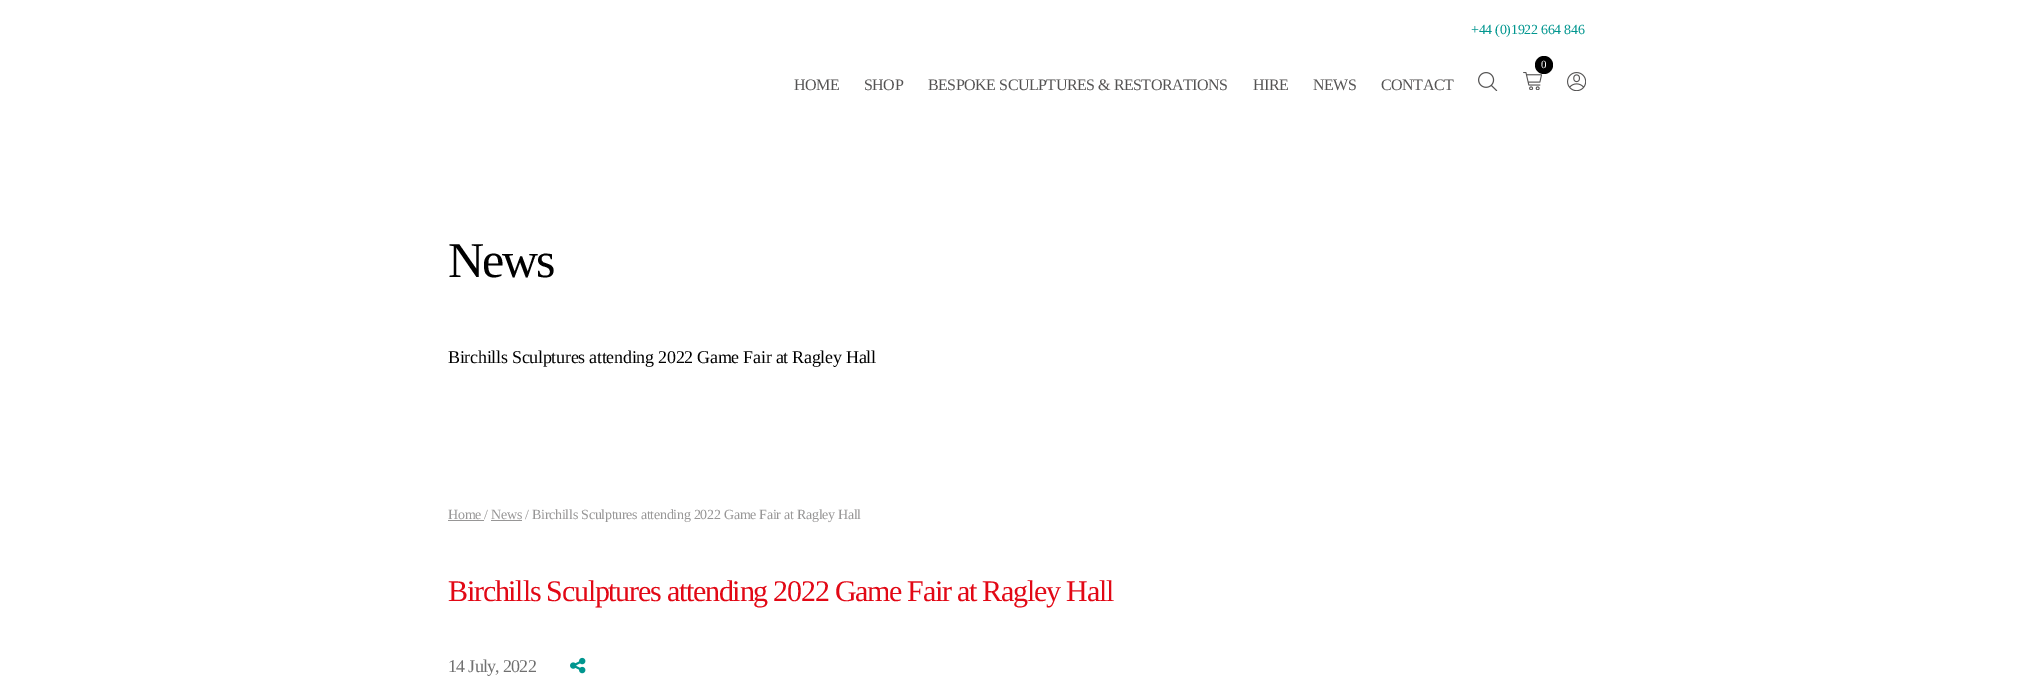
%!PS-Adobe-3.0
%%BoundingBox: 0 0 2034 683
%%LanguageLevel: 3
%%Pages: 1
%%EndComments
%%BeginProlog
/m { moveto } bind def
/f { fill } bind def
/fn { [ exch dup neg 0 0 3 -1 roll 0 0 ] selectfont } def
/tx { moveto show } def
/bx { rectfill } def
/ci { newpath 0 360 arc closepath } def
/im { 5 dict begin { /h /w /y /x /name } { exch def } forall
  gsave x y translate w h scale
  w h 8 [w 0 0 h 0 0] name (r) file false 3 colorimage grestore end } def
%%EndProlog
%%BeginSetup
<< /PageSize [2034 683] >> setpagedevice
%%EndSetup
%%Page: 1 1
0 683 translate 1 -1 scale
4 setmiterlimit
1 setgray
0 0 2034 683 bx
/LiberationSerif-Regular 14 fn
0 0.588 0.561 setrgbcolor
1471 34 m -0.27 0 (+44 \(0\)1922 664 846) ashow
(image0.raw) 1523 72 19 18 im
0 setgray
1544 65 9 ci f
/LiberationSerif-Regular 11 fn
1 setgray
(0) 1541 68 tx
/LiberationSerif-Regular 16 fn
0.329 0.325 0.325 setrgbcolor
794 90 m -0.5 0 (HOME) ashow
864 90 m -0.5 0 (SHOP) ashow
928 90 m -0.5 0 (BESPOKE SCULPTURES & RESTORATIONS) ashow
1253 90 m -0.5 0 (HIRE) ashow
1313 90 m -0.5 0 (NEWS) ashow
1381 90 m -0.5 0 (CONTACT) ashow
(image1.raw) 1478 72 20 19 im
(image2.raw) 1567 72 19 19 im
/LiberationSerif-Regular 50 fn
0 setgray
448 277 m -2 0 (News) ashow
/LiberationSerif-Regular 18 fn
448 363 m -0.27 0 (Birchills Sculptures attending 2022 Game Fair at Ragley Hall) ashow
0.592 0.588 0.588 setrgbcolor
448 520 36 1 bx
/LiberationSerif-Regular 14 fn
448 519 m -0.27 0 (Home / News / Birchills Sculptures attending 2022 Game Fair at Ragley Hall) ashow
491 520 31 1 bx
/LiberationSerif-Regular 30 fn
0.886 0.031 0.082 setrgbcolor
448 601 m -1.25 0 (Birchills Sculptures attending 2022 Game Fair at Ragley Hall) ashow
/LiberationSerif-Regular 18 fn
0.439 setgray
448 672 m -0.75 0 (14 July, 2022) ashow
(image3.raw) 570 657 16 17 im
showpage
%%EOF
